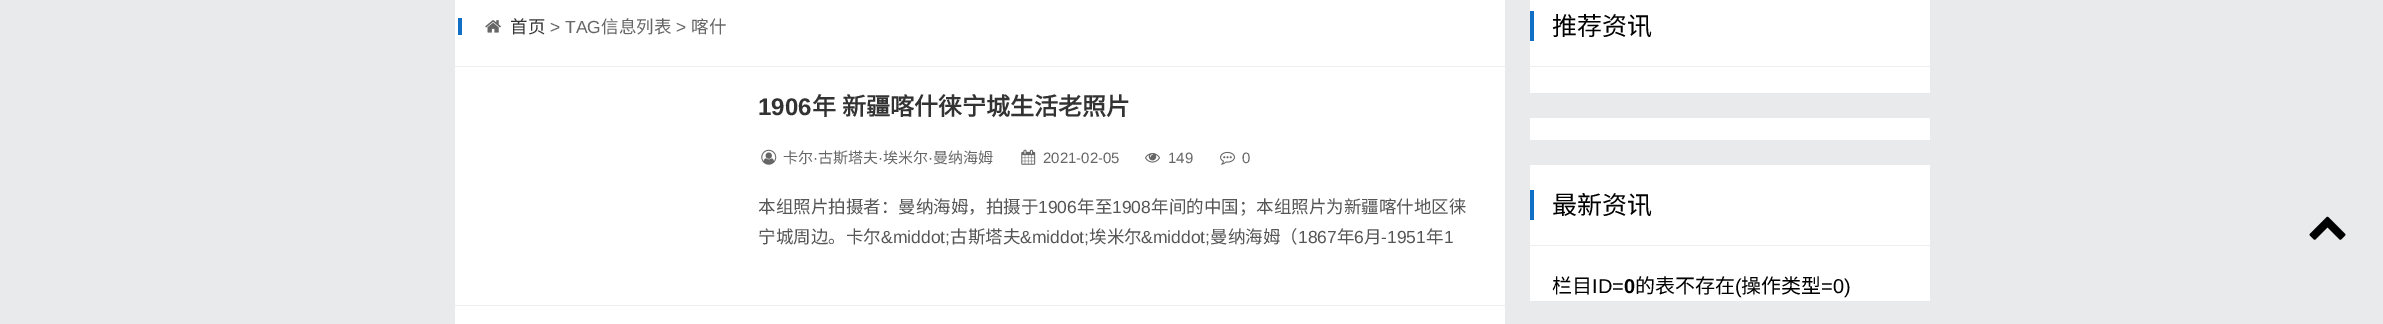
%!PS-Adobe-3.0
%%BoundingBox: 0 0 2383 324
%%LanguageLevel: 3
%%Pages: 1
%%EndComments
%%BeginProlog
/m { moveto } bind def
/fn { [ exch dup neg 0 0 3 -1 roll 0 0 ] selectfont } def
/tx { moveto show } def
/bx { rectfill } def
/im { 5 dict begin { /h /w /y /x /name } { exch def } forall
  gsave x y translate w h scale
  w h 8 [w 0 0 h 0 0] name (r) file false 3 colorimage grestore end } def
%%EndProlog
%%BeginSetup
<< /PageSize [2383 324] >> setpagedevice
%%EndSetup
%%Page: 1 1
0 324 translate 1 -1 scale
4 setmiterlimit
0.914 0.918 0.925 setrgbcolor
0 0 2383 324 bx
1 setgray
455 0 1050 324 bx
0.933 setgray
455 66 1050 1 bx
0.071 0.435 0.776 setrgbcolor
458 18 4 17 bx
(image0.raw) 485 20 16 13 im
/NotoSansCJKSC-Regular 17.5 fn
0.2 setgray
(首页) 510 33 tx
/LiberationSans-Regular 17.5 fn
0.4 setgray
(> TAG) 550 33 tx
/NotoSansCJKSC-Regular 17.5 fn
(信息列表) 601 33 tx
/LiberationSans-Regular 17.5 fn
(>) 676 33 tx
/NotoSansCJKSC-Regular 17.5 fn
(喀什) 691 33 tx
0.933 setgray
455 305 1050 1 bx
/LiberationSans-Bold 24 fn
0.2 setgray
(1906) 758 115 tx
/NotoSansCJKSC-Bold 24 fn
812 115 m 1 0 32 (年 新疆喀什徕宁城生活老照片) widthshow
(image1.raw) 761 149 16 16 im
/NotoSansCJKSC-Regular 15 fn
0.4 setgray
(卡尔) 783 163 tx
/LiberationSans-Regular 15 fn
(·) 813 163 tx
/NotoSansCJKSC-Regular 15 fn
(古斯塔夫) 818 163 tx
/LiberationSans-Regular 15 fn
(·) 878 163 tx
/NotoSansCJKSC-Regular 15 fn
(埃米尔) 883 163 tx
/LiberationSans-Regular 15 fn
(·) 928 163 tx
/NotoSansCJKSC-Regular 15 fn
(曼纳海姆) 933 163 tx
(image2.raw) 1021 149 15 16 im
/LiberationSans-Regular 15 fn
(2021-02-05) 1043 163 tx
(image3.raw) 1145 153 15 10 im
(149) 1168 163 tx
(image4.raw) 1220 151 15 14 im
(0) 1242 163 tx
/NotoSansCJKSC-Regular 17.5 fn
0.333 setgray
(本组照片拍摄者：曼纳海姆，拍摄于) 758 213 tx
/LiberationSans-Regular 17.5 fn
(1906) 1038 213 tx
/NotoSansCJKSC-Regular 17.5 fn
(年至) 1077 213 tx
/LiberationSans-Regular 17.5 fn
(1908) 1112 213 tx
/NotoSansCJKSC-Regular 17.5 fn
(年间的中国；本组照片为新疆喀什地区徕) 1151 213 tx
(宁城周边。卡尔) 758 243 tx
/LiberationSans-Regular 17.5 fn
(&middot;) 881 243 tx
/NotoSansCJKSC-Regular 17.5 fn
(古斯塔夫) 950 243 tx
/LiberationSans-Regular 17.5 fn
(&middot;) 1020 243 tx
/NotoSansCJKSC-Regular 17.5 fn
(埃米尔) 1089 243 tx
/LiberationSans-Regular 17.5 fn
(&middot;) 1141 243 tx
/NotoSansCJKSC-Regular 17.5 fn
(曼纳海姆（) 1210 243 tx
/LiberationSans-Regular 17.5 fn
(1867) 1298 243 tx
/NotoSansCJKSC-Regular 17.5 fn
(年) 1337 243 tx
/LiberationSans-Regular 17.5 fn
(6) 1354 243 tx
/NotoSansCJKSC-Regular 17.5 fn
(月) 1364 243 tx
/LiberationSans-Regular 17.5 fn
(-1951) 1381 243 tx
/NotoSansCJKSC-Regular 17.5 fn
(年) 1426 243 tx
/LiberationSans-Regular 17.5 fn
(1) 1444 243 tx
1 setgray
1530 0 400 93 bx
0.933 setgray
1530 66 400 1 bx
0.071 0.435 0.776 setrgbcolor
1530 11 4 30 bx
/NotoSansCJKSC-Regular 25 fn
0 setgray
(推荐资讯) 1552 35 tx
1 setgray
1530 118 400 22 bx
1530 165 400 136 bx
0.933 setgray
1530 245 400 1 bx
0.071 0.435 0.776 setrgbcolor
1530 190 4 30 bx
0 setgray
(最新资讯) 1552 214 tx
/NotoSansCJKSC-Regular 20 fn
(栏目) 1552 293 tx
/LiberationSans-Regular 20 fn
(ID=) 1592 293 tx
/LiberationSans-Bold 20 fn
(0) 1624 293 tx
/NotoSansCJKSC-Regular 20 fn
(的表不存在) 1635 293 tx
/LiberationSans-Regular 20 fn
(\() 1735 293 tx
/NotoSansCJKSC-Regular 20 fn
(操作类型) 1741 293 tx
/LiberationSans-Regular 20 fn
(=0\)) 1821 293 tx
(image5.raw) 2309 216 37 24 im
showpage
%%EOF
